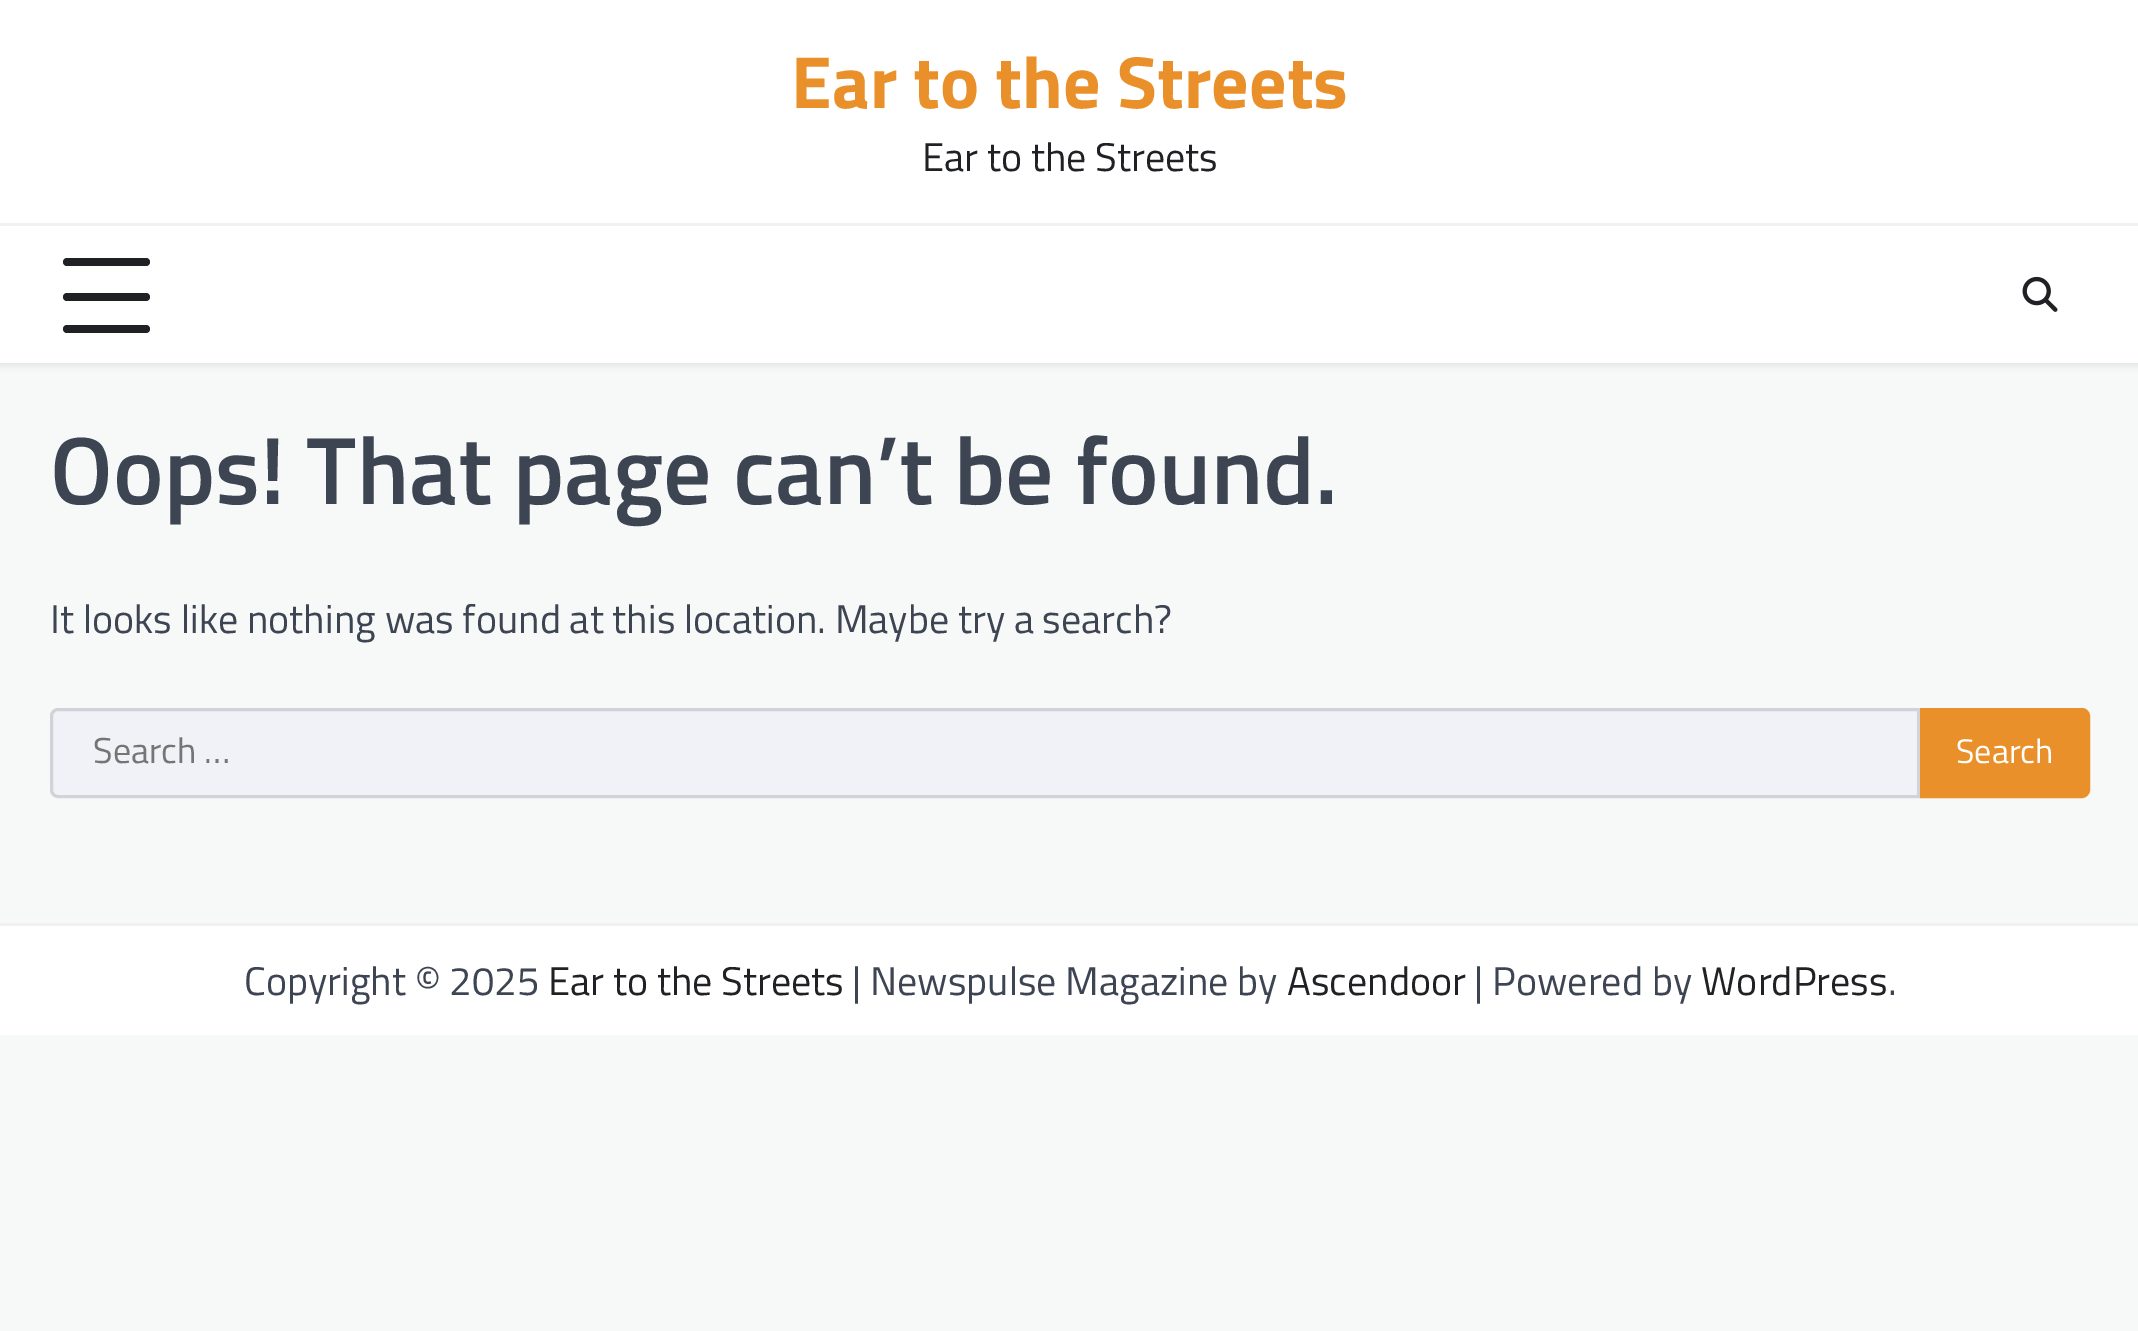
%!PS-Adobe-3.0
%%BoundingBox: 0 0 2138 1331
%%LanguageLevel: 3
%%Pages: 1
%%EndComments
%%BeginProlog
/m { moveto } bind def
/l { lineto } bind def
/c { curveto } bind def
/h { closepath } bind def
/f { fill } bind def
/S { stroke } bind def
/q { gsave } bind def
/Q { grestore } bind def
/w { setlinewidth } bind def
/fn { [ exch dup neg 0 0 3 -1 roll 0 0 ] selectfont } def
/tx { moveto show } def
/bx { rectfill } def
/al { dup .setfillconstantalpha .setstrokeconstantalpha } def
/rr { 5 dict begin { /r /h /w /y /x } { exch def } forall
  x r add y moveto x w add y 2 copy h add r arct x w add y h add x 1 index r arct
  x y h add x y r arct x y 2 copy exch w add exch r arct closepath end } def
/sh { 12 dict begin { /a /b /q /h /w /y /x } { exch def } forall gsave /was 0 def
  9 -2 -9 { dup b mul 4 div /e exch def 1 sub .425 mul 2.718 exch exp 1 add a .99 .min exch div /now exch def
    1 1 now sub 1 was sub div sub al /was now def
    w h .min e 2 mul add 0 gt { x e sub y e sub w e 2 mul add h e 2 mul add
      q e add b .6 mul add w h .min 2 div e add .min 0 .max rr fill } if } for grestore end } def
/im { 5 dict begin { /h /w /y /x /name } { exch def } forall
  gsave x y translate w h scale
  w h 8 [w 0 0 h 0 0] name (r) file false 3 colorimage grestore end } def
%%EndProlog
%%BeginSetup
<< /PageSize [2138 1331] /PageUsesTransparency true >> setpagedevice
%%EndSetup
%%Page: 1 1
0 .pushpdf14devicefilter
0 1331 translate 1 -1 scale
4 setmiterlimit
0.969 0.976 0.973 setrgbcolor
0 0 2138 1331 bx
0 setgray
0 3 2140 362 0 4 0.1 sh
1 setgray
0 0 2138 223 bx
/TitilliumWeb-Bold 73.75 fn
0.918 0.565 0.165 setrgbcolor
(Ear to the Streets) 791 108 tx
/TitilliumWeb-Regular 40 fn
0.125 0.129 0.141 setrgbcolor
(Ear to the Streets) 922 171 tx
1 setgray
0 226 2138 137 bx
0.945 setgray
0 223 2138 3 bx
0.125 0.129 0.141 setrgbcolor
63 258 87 8 4 rr f
63 293 87 8 4 rr f
63 325 87 8 4 rr f
(image0.raw) 2022 276 36 36 im
/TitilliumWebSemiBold-SemiBold 95.75 fn
0.239 0.267 0.322 setrgbcolor
(Oops! That page can’t be found.) 50 504 tx
/TitilliumWeb-Regular 40 fn
(It looks like nothing was found at this location. Maybe try a search?) 50 633 tx
0.941 0.949 0.969 setrgbcolor
58 708 m 1920 708 l 1920 798 l 58 798 l 53.5 798 50 794.5 50 790 c 50 716 l 50 711.5 53.5 708 58 708 c h f
0.15 al
0.125 0.129 0.141 setrgbcolor
3 w
58 709.5 m 1918.5 709.5 l 1918.5 796.5 l 58 796.5 l 54.5 796.5 51.5 793.5 51.5 790 c 51.5 716 l 51.5 712.5 54.5 709.5 58 709.5 c h S
/TitilliumWeb-Regular 36 fn
1 al
0.459 setgray
(Search …) 93 763 tx
0.918 0.565 0.165 setrgbcolor
1921.5 709.5 m 2082 709.5 l 2085.5 709.5 2088.5 712.5 2088.5 716 c 2088.5 790 l 2088.5 793.5 2085.5 796.5 2082 796.5 c 1921.5 796.5 l h q f Q
S
/TitilliumWeb-Regular 34 fn
1 setgray
(Search) 1956 763 tx
0 926 2138 109 bx
0.945 setgray
0 923 2138 3 bx
/TitilliumWeb-Regular 40 fn
0.239 0.267 0.322 setrgbcolor
(Copyright © 2025) 244 995 tx
0.125 0.129 0.141 setrgbcolor
(Ear to the Streets) 548 995 tx
0.239 0.267 0.322 setrgbcolor
(| Newspulse Magazine by) 852 995 tx
0.125 0.129 0.141 setrgbcolor
(Ascendoor) 1287 995 tx
0.239 0.267 0.322 setrgbcolor
(| Powered by) 1474 995 tx
0.125 0.129 0.141 setrgbcolor
(WordPress) 1701 995 tx
0.239 0.267 0.322 setrgbcolor
(.) 1888 995 tx
.poppdf14devicefilter showpage
%%EOF
